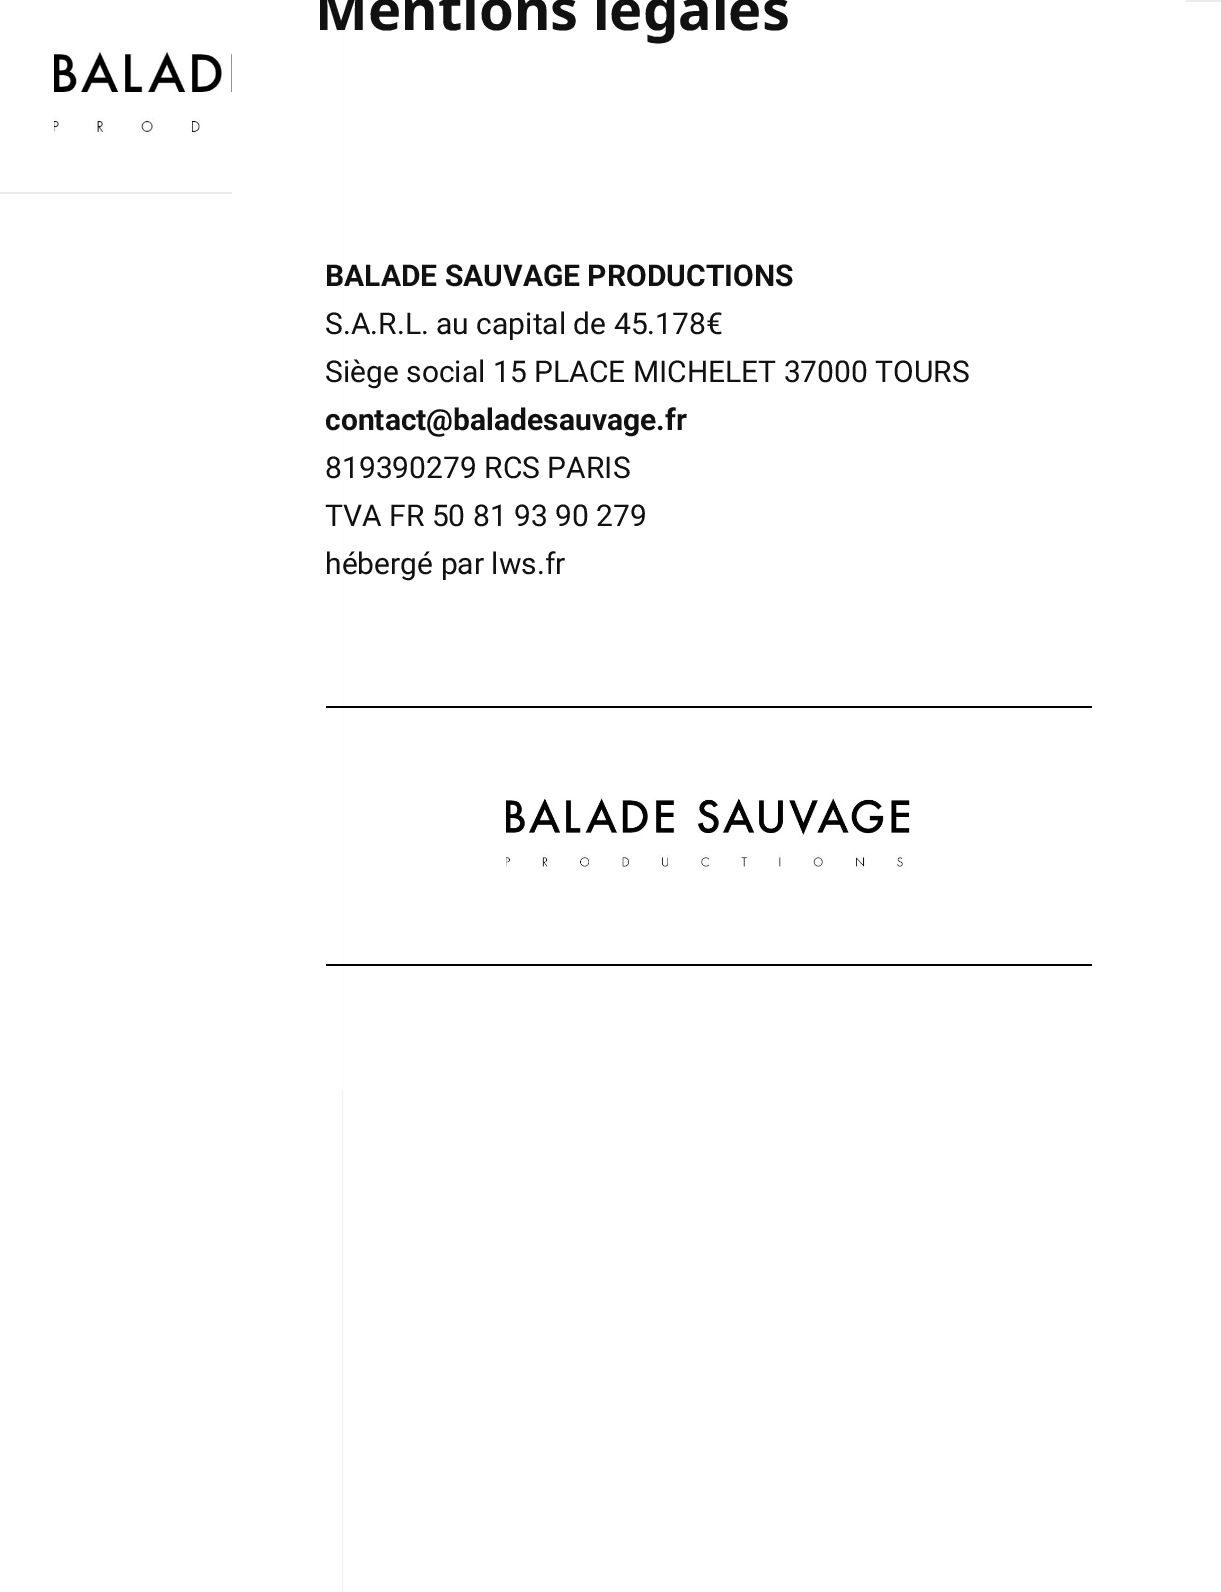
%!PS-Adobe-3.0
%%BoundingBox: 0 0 1221 1592
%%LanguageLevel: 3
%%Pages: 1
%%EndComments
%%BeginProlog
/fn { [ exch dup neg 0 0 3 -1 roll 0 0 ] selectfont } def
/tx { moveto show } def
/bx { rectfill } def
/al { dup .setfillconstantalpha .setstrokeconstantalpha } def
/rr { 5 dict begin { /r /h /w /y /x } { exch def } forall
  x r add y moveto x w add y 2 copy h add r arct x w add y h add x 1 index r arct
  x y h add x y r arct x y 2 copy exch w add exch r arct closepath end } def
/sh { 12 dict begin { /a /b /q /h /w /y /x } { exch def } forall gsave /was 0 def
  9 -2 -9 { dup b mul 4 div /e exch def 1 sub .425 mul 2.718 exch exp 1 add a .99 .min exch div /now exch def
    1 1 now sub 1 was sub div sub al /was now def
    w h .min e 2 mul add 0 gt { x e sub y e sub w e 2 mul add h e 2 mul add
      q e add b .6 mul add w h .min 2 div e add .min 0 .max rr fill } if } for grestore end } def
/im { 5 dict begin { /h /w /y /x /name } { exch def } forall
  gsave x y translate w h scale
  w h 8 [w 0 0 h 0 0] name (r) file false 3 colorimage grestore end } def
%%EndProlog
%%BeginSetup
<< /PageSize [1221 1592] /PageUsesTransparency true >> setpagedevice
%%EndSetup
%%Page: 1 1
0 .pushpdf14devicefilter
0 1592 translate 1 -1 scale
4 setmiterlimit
1 setgray
0 0 1221 1592 bx
0 setgray
0 0 342 1592 0 1 0.15 sh
1 setgray
0 194 342 1398 bx
0 0 232 192 bx
0.922 setgray
0 192 232 2 bx
(image0.raw) 54 48 178 84 im
1 setgray
232 0 111 1090 bx
/NotoSans-Bold 56 fn
0.067 setgray
(Mentions légales) 315 30 tx
/Roboto-Bold 30 fn
(BALADE SAUVAGE PRODUCTIONS) 325 286 tx
/Roboto-Regular 30 fn
(S.A.R.L. au capital de 45.178€) 325 334 tx
(Siège social 15 PLACE MICHELET 37000 TOURS) 325 382 tx
/Roboto-Bold 30 fn
(contact@baladesauvage.fr) 325 430 tx
/Roboto-Regular 30 fn
(819390279 RCS PARIS) 325 478 tx
(TVA FR 50 81 93 90 279) 325 526 tx
(hébergé par lws.fr) 325 574 tx
0 setgray
326 706 766 2 bx
(image1.raw) 506 795 405 72 im
326 964 766 2 bx
0.922 setgray
1186 0 35 2 bx
.poppdf14devicefilter showpage
%%EOF
